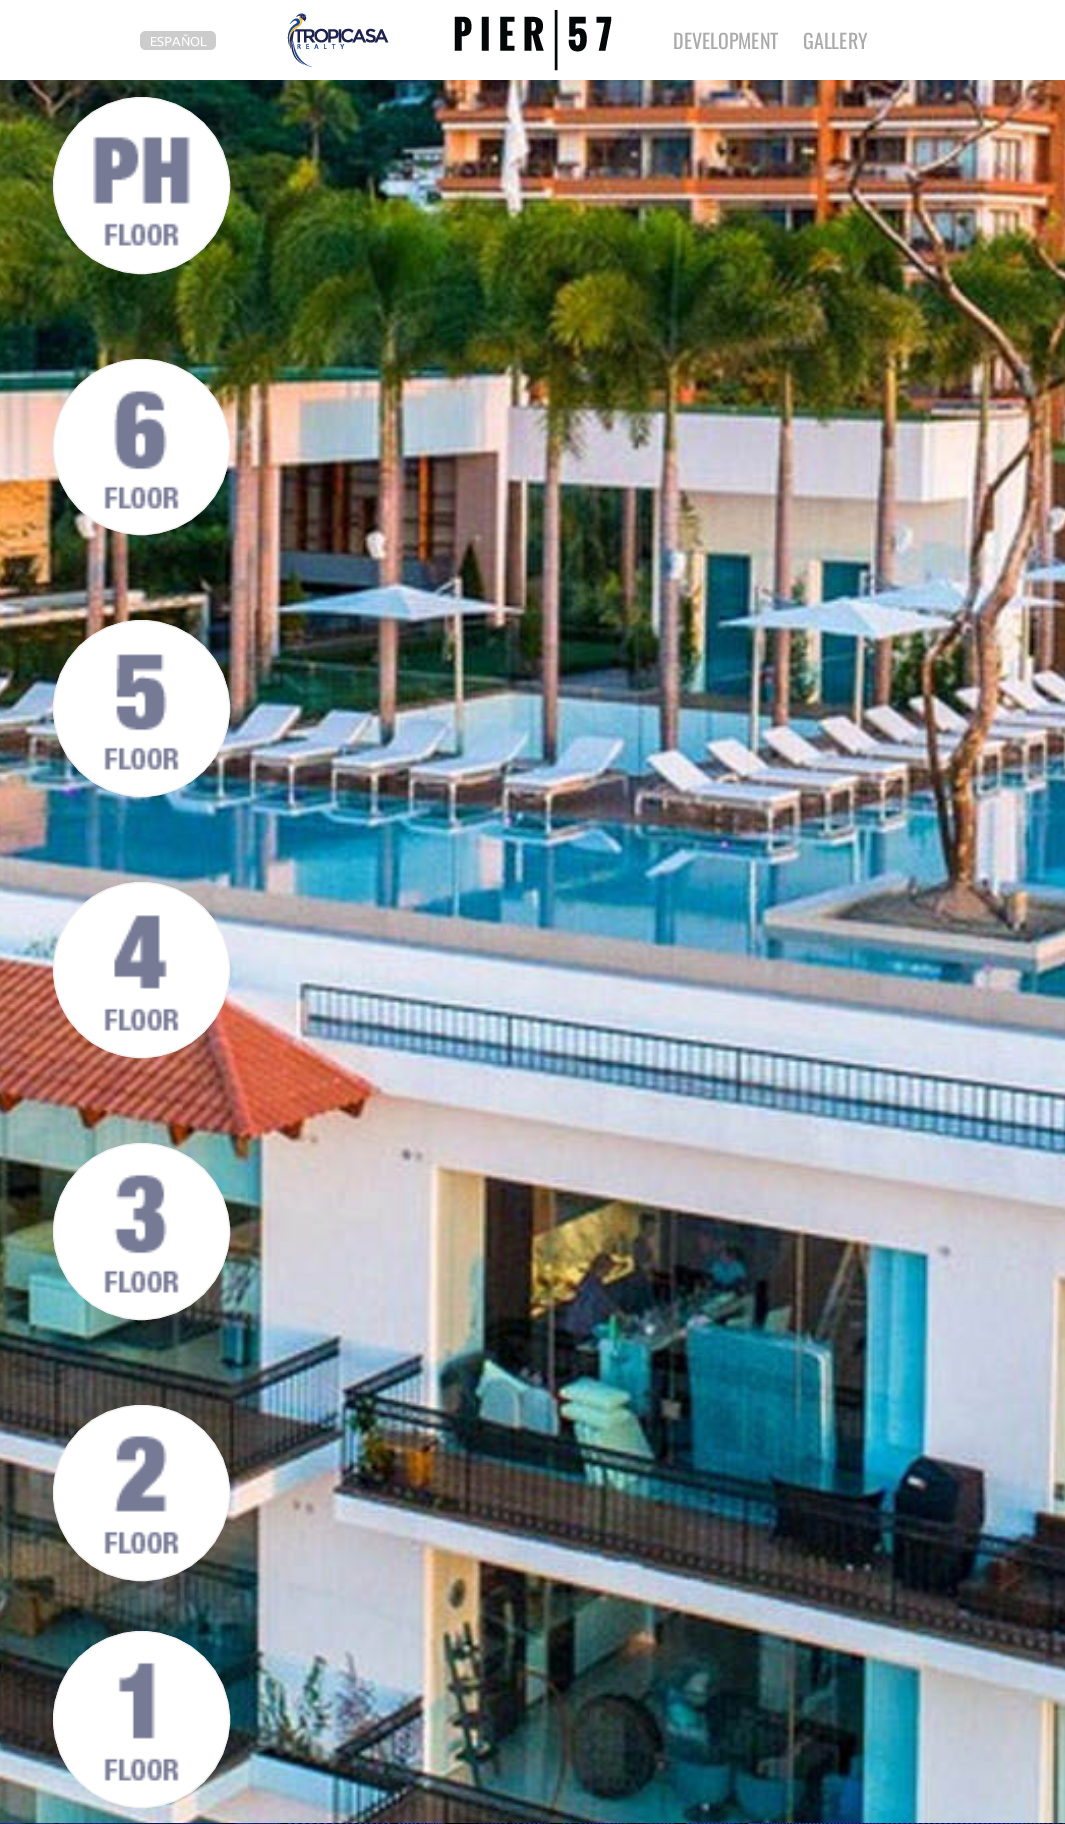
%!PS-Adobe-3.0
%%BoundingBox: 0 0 1065 1824
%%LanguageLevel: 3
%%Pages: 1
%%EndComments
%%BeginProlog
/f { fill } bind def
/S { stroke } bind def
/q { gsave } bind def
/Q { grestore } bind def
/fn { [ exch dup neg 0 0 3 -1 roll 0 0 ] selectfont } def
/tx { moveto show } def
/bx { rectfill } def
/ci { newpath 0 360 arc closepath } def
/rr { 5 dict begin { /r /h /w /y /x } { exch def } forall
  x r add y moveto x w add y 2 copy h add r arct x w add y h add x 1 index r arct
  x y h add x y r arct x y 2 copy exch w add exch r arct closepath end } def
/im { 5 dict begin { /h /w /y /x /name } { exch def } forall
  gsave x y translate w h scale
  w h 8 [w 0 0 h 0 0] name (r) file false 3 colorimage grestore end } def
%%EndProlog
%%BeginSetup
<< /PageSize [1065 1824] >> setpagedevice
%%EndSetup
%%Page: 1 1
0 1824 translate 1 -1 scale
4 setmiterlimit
1 setgray
0 0 1065 1824 bx
0.8 setgray
140 31 76 19 6 rr f
/Ubuntu-Regular 13 fn
1 setgray
(ESPAÑOL) 150 46 tx
(image0.raw) 287 13 102 54 im
(image1.raw) 454 10 158 61 im
/Oswald-Regular 20 fn
0.667 setgray
(DEVELOPMENT) 673 49 tx
(GALLERY) 803 49 tx
(image2.raw) 0 80 1065 1743 im
1 setgray
141.5 185.5 88 ci q f Q
0.933 setgray
S
(image3.raw) 93 136 98 110 im
1 setgray
53.5 359.5 176 175 87.5 rr q f Q
0.933 setgray
S
(image4.raw) 104 390 75 119 im
1 setgray
141.5 708.5 88 ci q f Q
0.933 setgray
S
(image5.raw) 104 654 75 116 im
1 setgray
53.5 882.5 176 175 87.5 rr q f Q
0.933 setgray
S
(image6.raw) 104 915 75 116 im
1 setgray
141.5 1231.5 88 ci q f Q
0.933 setgray
S
(image7.raw) 104 1174 75 119 im
1 setgray
53.5 1405.5 176 175 87.5 rr q f Q
0.933 setgray
S
(image8.raw) 104 1435 75 119 im
1 setgray
141.5 1719.5 88 ci q f Q
0.933 setgray
S
(image9.raw) 104 1662 75 119 im
(image10.raw) 0 1823 1065 1 im
showpage
%%EOF
